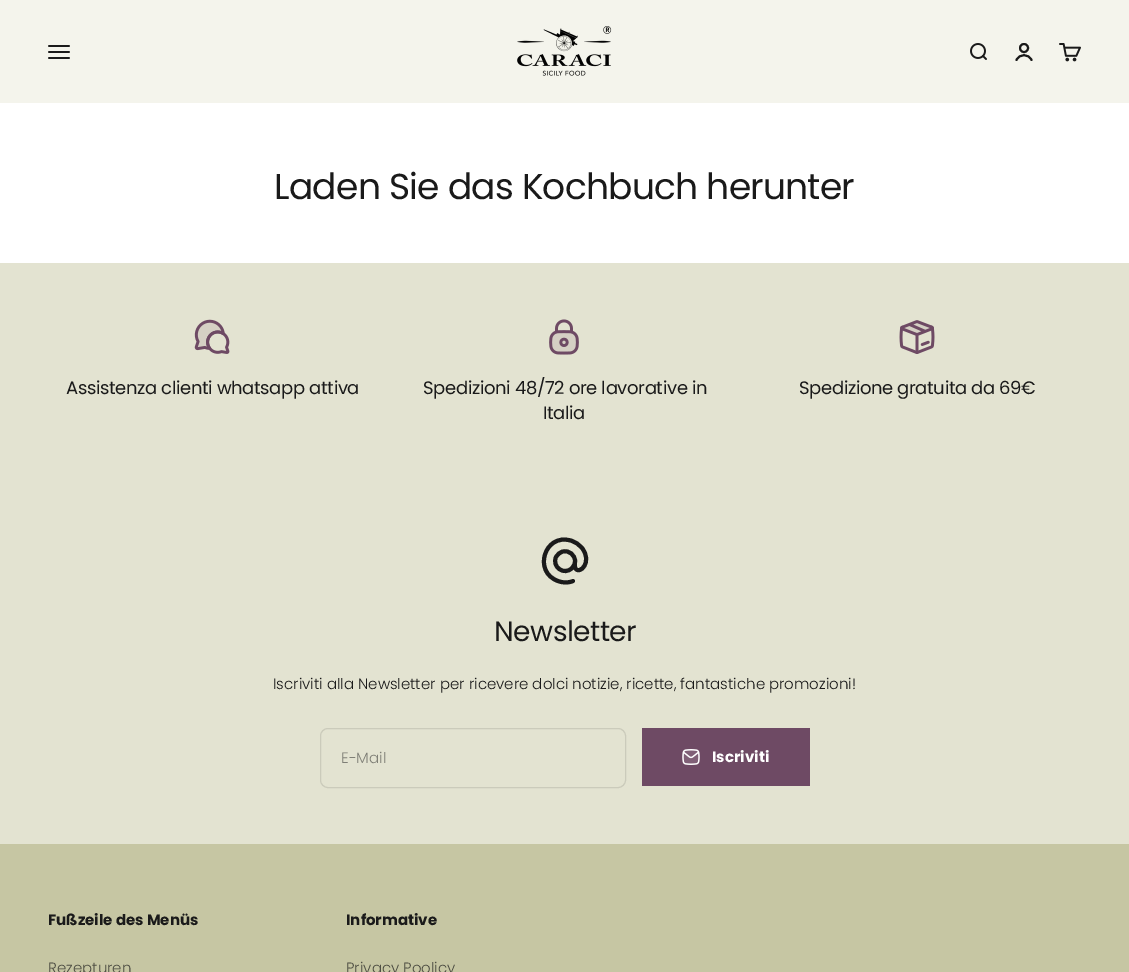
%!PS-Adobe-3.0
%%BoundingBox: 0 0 1129 972
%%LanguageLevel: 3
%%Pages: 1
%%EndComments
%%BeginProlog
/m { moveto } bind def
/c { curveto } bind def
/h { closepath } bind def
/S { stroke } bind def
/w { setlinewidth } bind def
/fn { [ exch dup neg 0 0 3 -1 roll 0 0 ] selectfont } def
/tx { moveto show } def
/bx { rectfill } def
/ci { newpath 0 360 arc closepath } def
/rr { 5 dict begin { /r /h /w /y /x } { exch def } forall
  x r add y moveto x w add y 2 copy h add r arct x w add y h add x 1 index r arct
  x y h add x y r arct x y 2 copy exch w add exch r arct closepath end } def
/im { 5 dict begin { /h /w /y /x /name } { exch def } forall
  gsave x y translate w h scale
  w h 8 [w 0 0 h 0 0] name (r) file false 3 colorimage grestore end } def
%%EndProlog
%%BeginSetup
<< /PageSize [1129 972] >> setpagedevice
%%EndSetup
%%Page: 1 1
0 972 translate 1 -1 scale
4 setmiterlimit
0.89 0.89 0.82 setrgbcolor
0 0 1129 972 bx
0.957 0.957 0.925 setrgbcolor
0 0 1129 103 bx
(image0.raw) 48 45 22 14 im
(image1.raw) 517 26 95 50 im
(image2.raw) 970 43 17 17 im
0.102 setgray
2 w
1024 48 4 ci S
1 setlinecap
1016.5 60 m 1019.5 53.5 1028.5 53.5 1031.5 60 c S
(image3.raw) 1059 43 22 19 im
1 setgray
0 103 1129 160 bx
/Poppins-Regular 36 fn
0.102 setgray
274 199 m -0.75 0 (Laden Sie das Kochbuch herunter) ashow
(image4.raw) 194 319 36 35 im
/Poppins-Regular 18 fn
66 394 m -0.35 0 (Assistenza clienti whatsapp attiva) ashow
(image5.raw) 549 319 30 36 im
423 394 m -0.35 0 (Spedizioni 48/72 ore lavorative in) ashow
543 419 m -0.35 0 (Italia) ashow
(image6.raw) 899 320 36 34 im
799 394 m -0.35 0 (Spedizione gratuita da 69€) ashow
4 w
1 setlinejoin
575 561 m 575 563.5 574 566 572 568 c 564.5 576 551.5 567 556 557 c 557.5 554.5 560 552 563 551.5 c 569 550 575 555 575 561 c h 575 561 m 575 563.5 574.5 566.5 575.5 568.5 c 579.5 575 593 562 582 548 c 579 544.5 575 541.5 570.5 540.5 c 544.5 533 532.5 572 558 581 c 563 583 568.5 583 573 581 c S
/Poppins-Regular 28 fn
494 641 m -0.5 0 (Newsletter) ashow
/Poppins-Light 15 fn
(Iscriviti alla Newsletter per ricevere dolci notizie, ricette, fantastiche promozioni!) 273 689 tx
0.796 0.796 0.733 setrgbcolor
1 w
0 setlinecap
0 setlinejoin
320.5 728.5 305 59 7.5 rr S
0.498 0.498 0.463 setrgbcolor
(E-Mail) 341 763 tx
0.431 0.29 0.392 setrgbcolor
642 728 168 58 bx
(image7.raw) 682 749 18 16 im
/Poppins-Bold 15 fn
1 setgray
(Iscriviti) 712 762 tx
0.776 0.776 0.639 setrgbcolor
0 844 1129 128 bx
0.102 setgray
(Fußzeile des Menüs) 48 925 tx
/Poppins-Light 15 fn
0.306 0.306 0.263 setrgbcolor
(Rezepturen) 48 973 tx
/Poppins-Bold 15 fn
0.102 setgray
(Informative) 346 925 tx
/Poppins-Light 15 fn
0.306 0.306 0.263 setrgbcolor
(Privacy Poolicy) 346 973 tx
showpage
%%EOF
